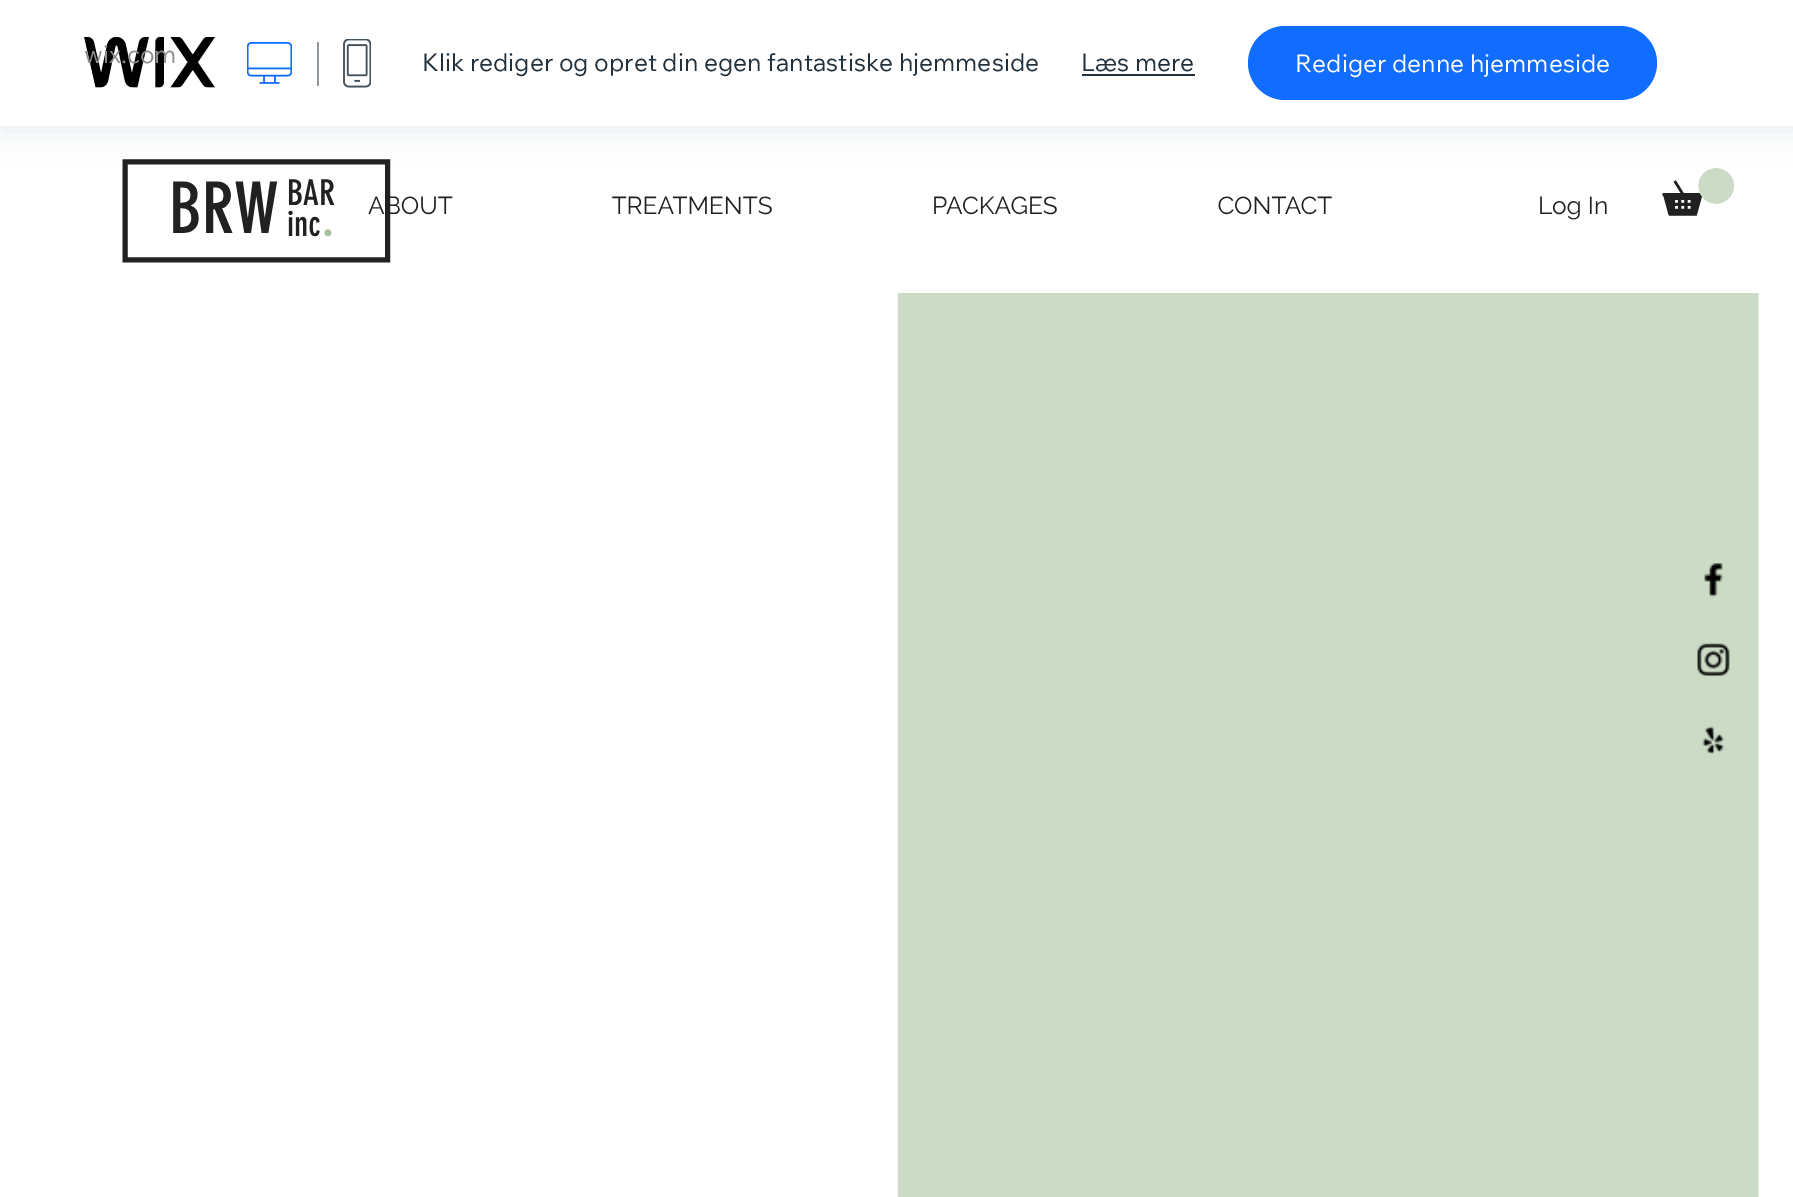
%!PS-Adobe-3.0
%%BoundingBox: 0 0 1793 1197
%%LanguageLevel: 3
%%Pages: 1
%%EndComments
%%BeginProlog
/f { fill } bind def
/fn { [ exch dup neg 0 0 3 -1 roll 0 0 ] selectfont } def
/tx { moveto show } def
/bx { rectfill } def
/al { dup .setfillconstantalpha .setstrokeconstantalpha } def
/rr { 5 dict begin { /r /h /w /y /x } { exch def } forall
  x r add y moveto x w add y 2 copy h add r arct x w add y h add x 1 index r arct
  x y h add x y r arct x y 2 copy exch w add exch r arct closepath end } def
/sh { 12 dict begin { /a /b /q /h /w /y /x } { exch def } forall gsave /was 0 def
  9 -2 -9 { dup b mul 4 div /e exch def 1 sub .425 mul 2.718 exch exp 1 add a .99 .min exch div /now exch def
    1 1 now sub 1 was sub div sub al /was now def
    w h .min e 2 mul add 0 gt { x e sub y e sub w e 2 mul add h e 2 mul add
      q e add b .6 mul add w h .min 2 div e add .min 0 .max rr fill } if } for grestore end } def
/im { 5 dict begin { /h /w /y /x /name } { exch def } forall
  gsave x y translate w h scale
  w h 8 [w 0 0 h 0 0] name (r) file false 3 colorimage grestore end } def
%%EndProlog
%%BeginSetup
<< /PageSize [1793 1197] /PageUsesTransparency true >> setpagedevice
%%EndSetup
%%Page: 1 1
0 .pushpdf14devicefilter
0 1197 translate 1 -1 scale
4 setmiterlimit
1 setgray
0 0 1793 1197 bx
(image3.raw) 0 126 1793 1071 im
0.506 0.635 0.714 setrgbcolor
0 4 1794 126 0 16 0.2 sh
1 setgray
0 0 1793 126 bx
(image0.raw) 84 37 131 51 im
/WixMadeforText-Regular 24.5 fn
0.549 setgray
(wix.com) 84 63 tx
(image1.raw) 247 42 45 42 im
0.565 0.596 0.62 setrgbcolor
317 42 2 44 bx
(image2.raw) 343 39 28 49 im
0.125 0.188 0.235 setrgbcolor
(Klik rediger og opret din egen fantastiske hjemmeside) 422 71 tx
(Læs mere) 1081 71 tx
1082 74 113 2 bx
0.067 0.427 1 setrgbcolor
1248 26 409 74 37 rr f
1 setgray
(Rediger denne hjemmeside) 1295 72 tx
.poppdf14devicefilter showpage
%%EOF
